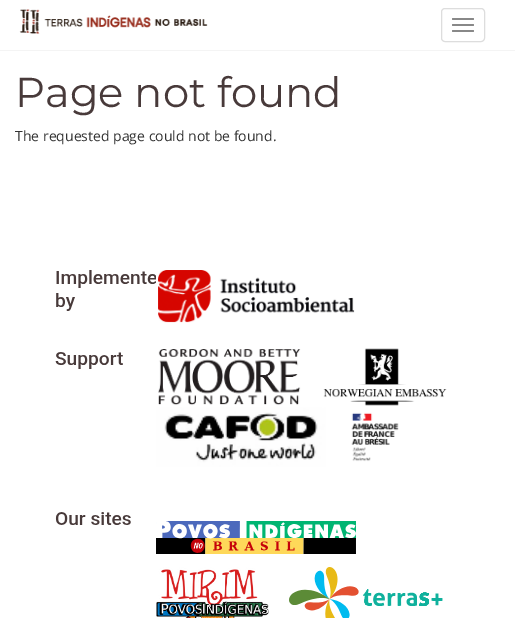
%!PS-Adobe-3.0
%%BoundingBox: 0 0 515 618
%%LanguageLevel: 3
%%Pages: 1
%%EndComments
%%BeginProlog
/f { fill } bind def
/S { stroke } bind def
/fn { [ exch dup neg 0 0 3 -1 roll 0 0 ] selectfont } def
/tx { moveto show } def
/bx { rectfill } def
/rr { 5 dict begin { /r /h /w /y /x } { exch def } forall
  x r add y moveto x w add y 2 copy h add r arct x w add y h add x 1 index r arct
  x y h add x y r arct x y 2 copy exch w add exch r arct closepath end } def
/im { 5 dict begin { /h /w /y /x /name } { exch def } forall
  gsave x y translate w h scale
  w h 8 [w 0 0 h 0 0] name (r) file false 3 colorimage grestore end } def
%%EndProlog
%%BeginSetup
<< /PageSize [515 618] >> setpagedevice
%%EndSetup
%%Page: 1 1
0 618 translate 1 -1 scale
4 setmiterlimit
1 setgray
0 0 515 618 bx
0.957 setgray
0 50 515 1 bx
(image0.raw) 19 9 189 25 im
0.867 setgray
441.5 8.5 43 33 3.5 rr S
0.533 setgray
452 18 22 2 1 rr f
452 24 22 2 1 rr f
452 30 22 2 1 rr f
/Montserrat-Thin 41.75 fn
0.282 0.227 0.227 setrgbcolor
(Page not found) 15 107 tx
/OpenSans-Regular 14 fn
0.2 setgray
(The requested page could not be found.) 15 141 tx
(image1.raw) 55 270 392 348 im
showpage
%%EOF
